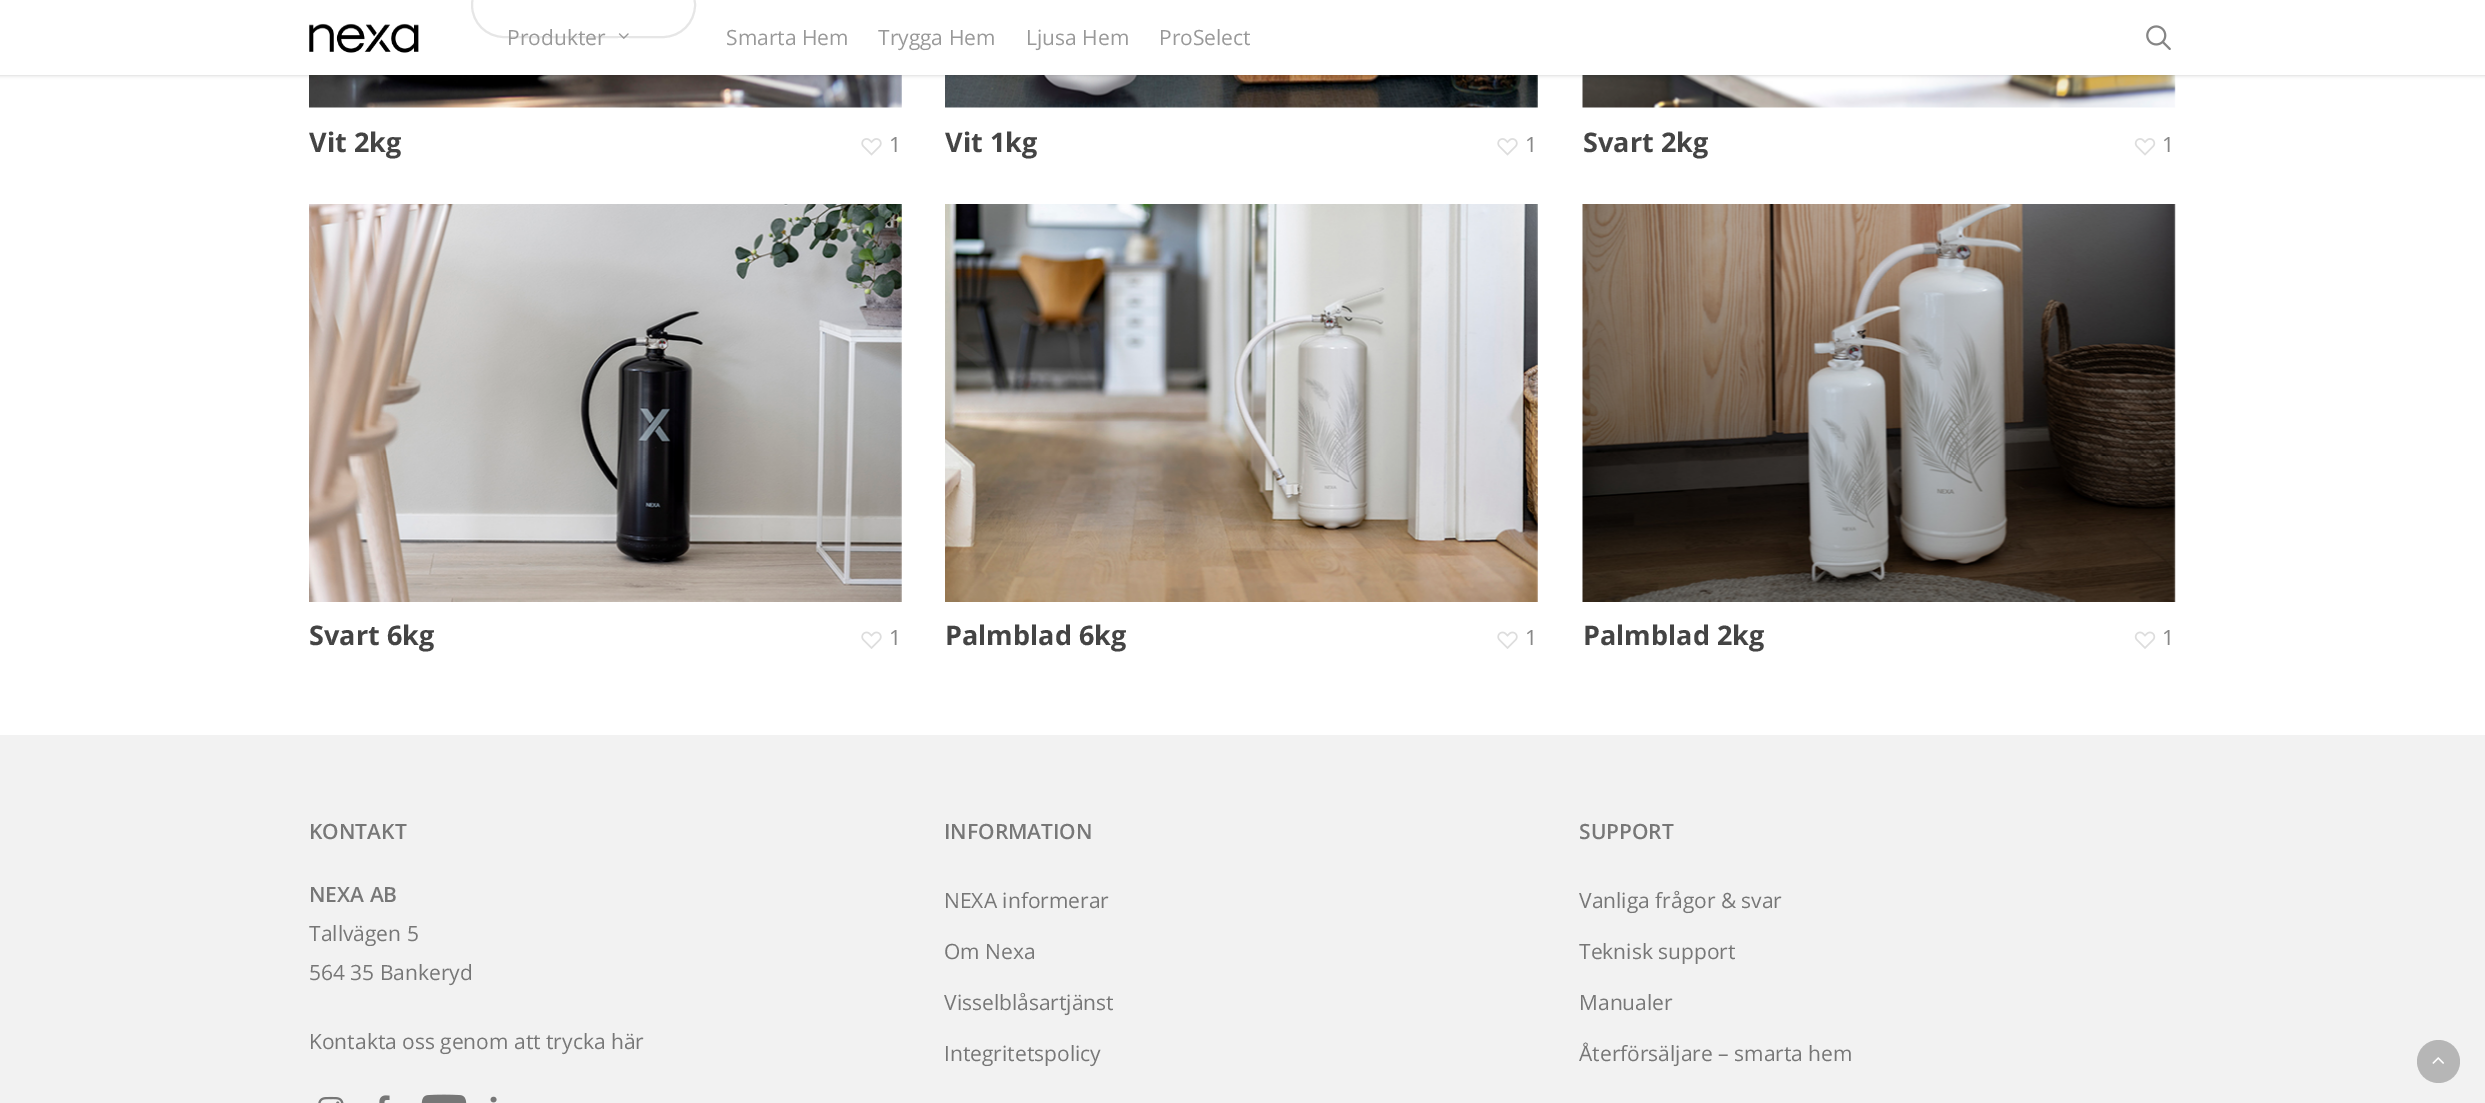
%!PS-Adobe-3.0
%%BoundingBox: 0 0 2485 1103
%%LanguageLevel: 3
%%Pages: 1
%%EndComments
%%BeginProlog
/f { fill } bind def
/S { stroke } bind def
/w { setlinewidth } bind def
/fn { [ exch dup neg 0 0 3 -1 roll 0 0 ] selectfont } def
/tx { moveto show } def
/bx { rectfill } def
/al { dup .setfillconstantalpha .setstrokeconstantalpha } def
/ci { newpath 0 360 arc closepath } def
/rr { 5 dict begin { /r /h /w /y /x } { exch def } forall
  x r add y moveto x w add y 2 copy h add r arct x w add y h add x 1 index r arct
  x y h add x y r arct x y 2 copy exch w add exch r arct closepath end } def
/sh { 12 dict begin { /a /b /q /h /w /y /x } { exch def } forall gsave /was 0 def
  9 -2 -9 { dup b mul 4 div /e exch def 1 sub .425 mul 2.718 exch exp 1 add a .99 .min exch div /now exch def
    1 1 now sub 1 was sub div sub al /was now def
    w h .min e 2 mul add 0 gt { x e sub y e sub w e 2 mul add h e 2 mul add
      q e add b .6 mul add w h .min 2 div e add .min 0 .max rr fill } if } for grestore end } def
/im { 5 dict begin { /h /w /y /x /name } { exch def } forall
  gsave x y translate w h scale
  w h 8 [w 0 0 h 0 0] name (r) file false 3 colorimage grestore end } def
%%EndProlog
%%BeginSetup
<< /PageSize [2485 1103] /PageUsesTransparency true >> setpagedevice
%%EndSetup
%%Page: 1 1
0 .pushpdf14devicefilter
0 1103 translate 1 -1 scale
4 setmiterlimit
1 setgray
0 0 2485 1103 bx
(image3.raw) 309 75 593 33 im
(image5.raw) 945 75 593 33 im
(image6.raw) 1582 75 594 33 im
0 setgray
0 0 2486 75 0 2 0.22 sh
1 setgray
0 0 2485 75 bx
(image0.raw) 309 23 110 30 im
0.902 setgray
2 w
472 -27 223 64 32 rr S
/OpenSans-Regular 21 fn
0.6 setgray
(Produkter) 507 45 tx
(image1.raw) 618 33 11 6 im
(Smarta Hem) 726 45 tx
(Trygga Hem) 878 45 tx
(Ljusa Hem) 1026 45 tx
(ProSelect) 1159 45 tx
(image2.raw) 2146 25 25 25 im
/OpenSans-Bold 27 fn
0.267 setgray
(Vit 2kg) 309 152 tx
(image4.raw) 861 138 21 18 im
/OpenSans-Regular 21 fn
0.533 setgray
(1) 889 152 tx
/OpenSans-Bold 27 fn
0.267 setgray
(Vit 1kg) 945 152 tx
(image4.raw) 1497 138 21 18 im
/OpenSans-Regular 21 fn
0.533 setgray
(1) 1525 152 tx
/OpenSans-Bold 27 fn
0.267 setgray
(Svart 2kg) 1583 152 tx
(image7.raw) 2134 138 22 18 im
/OpenSans-Regular 21 fn
0.533 setgray
(1) 2162 152 tx
(image8.raw) 309 204 593 398 im
/OpenSans-Bold 27 fn
0.267 setgray
(Svart 6kg) 309 645 tx
(image9.raw) 861 631 21 18 im
/OpenSans-Regular 21 fn
0.533 setgray
(1) 889 645 tx
(image10.raw) 945 204 593 398 im
/OpenSans-Bold 27 fn
0.267 setgray
(Palmblad 6kg) 945 645 tx
(image9.raw) 1497 631 21 18 im
/OpenSans-Regular 21 fn
0.533 setgray
(1) 1525 645 tx
(image11.raw) 1582 204 594 398 im
/OpenSans-Bold 27 fn
0.267 setgray
(Palmblad 2kg) 1583 645 tx
(image12.raw) 2134 631 22 18 im
/OpenSans-Regular 21 fn
0.533 setgray
(1) 2162 645 tx
0.949 setgray
0 735 2485 368 bx
/OpenSans-SemiBold 21 fn
0.467 setgray
(KONTAKT) 309 839 tx
(NEXA AB) 309 902 tx
/OpenSans-Regular 21 fn
(Tallvägen 5) 309 941 tx
(564 35 Bankeryd) 309 980 tx
(Kontakta oss genom att trycka här) 309 1049 tx
(image13.raw) 318 1096 26 7 im
(image14.raw) 379 1095 11 8 im
(image15.raw) 421 1094 46 9 im
(image16.raw) 490 1096 7 7 im
/OpenSans-SemiBold 21 fn
(INFORMATION) 944 839 tx
/OpenSans-Regular 21 fn
(NEXA informerar) 944 908 tx
(Om Nexa) 944 959 tx
(Visselblåsartjänst) 944 1010 tx
(Integritetspolicy) 944 1061 tx
/OpenSans-SemiBold 21 fn
(SUPPORT) 1579 839 tx
/OpenSans-Regular 21 fn
(Vanliga frågor & svar) 1579 908 tx
(Teknisk support) 1579 959 tx
(Manualer) 1579 1010 tx
(Återförsäljare – smarta hem) 1579 1061 tx
0.714 setgray
2438.5 1061.5 21.5 ci f
(image17.raw) 2432 1057 12 7 im
.poppdf14devicefilter showpage
%%EOF
